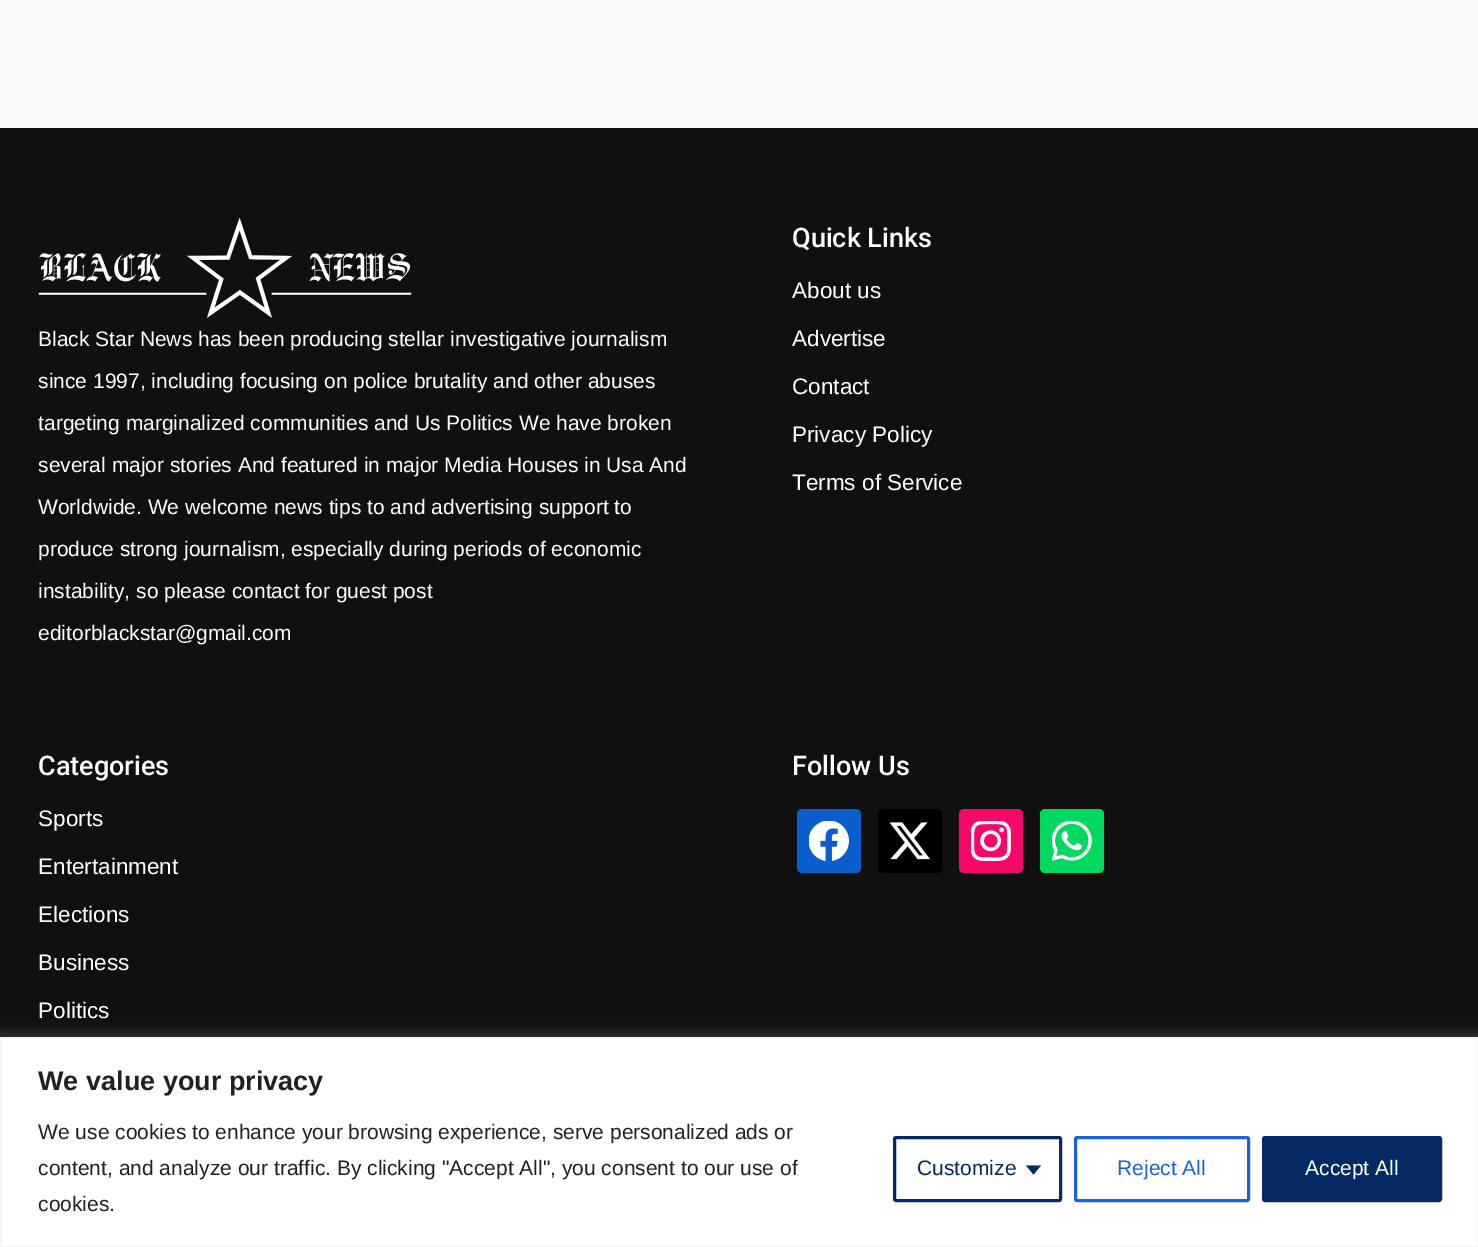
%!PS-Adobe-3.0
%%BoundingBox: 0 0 1478 1247
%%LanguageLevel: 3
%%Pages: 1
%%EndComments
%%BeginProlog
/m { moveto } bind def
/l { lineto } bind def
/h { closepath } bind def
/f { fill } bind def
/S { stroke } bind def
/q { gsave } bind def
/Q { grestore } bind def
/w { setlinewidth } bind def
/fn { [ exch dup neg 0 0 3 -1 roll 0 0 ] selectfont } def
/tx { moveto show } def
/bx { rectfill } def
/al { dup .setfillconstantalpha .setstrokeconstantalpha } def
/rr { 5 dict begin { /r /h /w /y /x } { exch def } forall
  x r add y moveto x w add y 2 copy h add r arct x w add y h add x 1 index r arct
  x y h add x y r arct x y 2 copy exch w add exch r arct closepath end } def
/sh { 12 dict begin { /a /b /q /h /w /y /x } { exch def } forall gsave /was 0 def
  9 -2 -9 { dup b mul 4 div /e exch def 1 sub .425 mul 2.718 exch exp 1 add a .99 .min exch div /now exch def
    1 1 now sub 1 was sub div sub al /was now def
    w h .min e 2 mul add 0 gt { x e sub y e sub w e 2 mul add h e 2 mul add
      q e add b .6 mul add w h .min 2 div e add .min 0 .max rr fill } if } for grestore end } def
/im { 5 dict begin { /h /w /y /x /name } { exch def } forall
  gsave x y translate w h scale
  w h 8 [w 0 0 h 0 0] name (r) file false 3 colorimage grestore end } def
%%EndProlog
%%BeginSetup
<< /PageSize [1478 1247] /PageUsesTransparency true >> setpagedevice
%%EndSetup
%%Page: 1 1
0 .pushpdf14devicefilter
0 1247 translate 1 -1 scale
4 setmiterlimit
0.969 0.973 0.976 setrgbcolor
0 0 1478 1247 bx
0.063 setgray
0 128 1478 909 bx
(image0.raw) 38 218 374 100 im
/LiberationSans-Regular 21 fn
1 setgray
(Black Star News has been producing stellar investigative journalism) 38 346 tx
(since 1997, including focusing on police brutality and other abuses) 38 388 tx
(targeting marginalized communities and Us Politics We have broken) 38 430 tx
(several major stories And featured in major Media Houses in Usa And) 38 472 tx
(Worldwide. We welcome news tips to and advertising support to) 38 514 tx
(produce strong journalism, especially during periods of economic) 38 556 tx
(instability, so please contact for guest post) 38 598 tx
(editorblackstar@gmail.com) 38 640 tx
/Roboto-Medium 27 fn
(Quick Links) 792 247 tx
/LiberationSans-Regular 22.5 fn
(About us) 792 298 tx
(Advertise) 792 346 tx
(Contact) 792 394 tx
(Privacy Policy) 792 442 tx
(Terms of Service) 792 490 tx
/Roboto-Medium 27 fn
(Categories) 38 775 tx
/LiberationSans-Regular 22.5 fn
(Sports) 38 826 tx
(Entertainment) 38 874 tx
(Elections) 38 922 tx
(Business) 38 970 tx
(Politics) 38 1018 tx
/Roboto-Medium 27 fn
(Follow Us) 792 775 tx
0.031 0.369 0.792 setrgbcolor
797 809 64 64 5 rr f
(image1.raw) 809 821 40 40 im
0 setgray
878 809 64 64 5 rr f
(image2.raw) 890 822 40 38 im
0.965 0.031 0.42 setrgbcolor
959 809 64 64 5 rr f
(image3.raw) 971 821 40 40 im
0 0.851 0.373 setrgbcolor
1040 809 64 64 5 rr f
(image4.raw) 1052 821 40 40 im
0.675 0.671 0.671 setrgbcolor
0 1035 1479 212 0 7.5 0.3 sh
1 setgray
1 1038 m 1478 1038 l 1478 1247 l 1 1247 l h q f Q
0.957 setgray
2 w
S
/LiberationSans-Bold 27 fn
0.129 setgray
(We value your privacy) 38 1090 tx
/LiberationSans-Regular 21 fn
(We use cookies to enhance your browsing experience, serve personalized ads or) 38 1139 tx
(content, and analyze our traffic. By clicking "Accept All", you consent to our use of) 38 1175 tx
(cookies.) 38 1211 tx
0.02 0.161 0.384 setrgbcolor
3 w
894.5 1137.5 166 63 1.5 rr S
(Customize) 917 1175 tx
1026 1165.5 m 1041 1165.5 l 1033.5 1174.5 l h f
0.094 0.388 0.863 setrgbcolor
1075.5 1137.5 173 63 1.5 rr S
(Reject All) 1117 1175 tx
0.02 0.161 0.384 setrgbcolor
1263.5 1137.5 177 63 1.5 rr q f Q
S
1 setgray
(Accept All) 1305 1175 tx
.poppdf14devicefilter showpage
%%EOF
